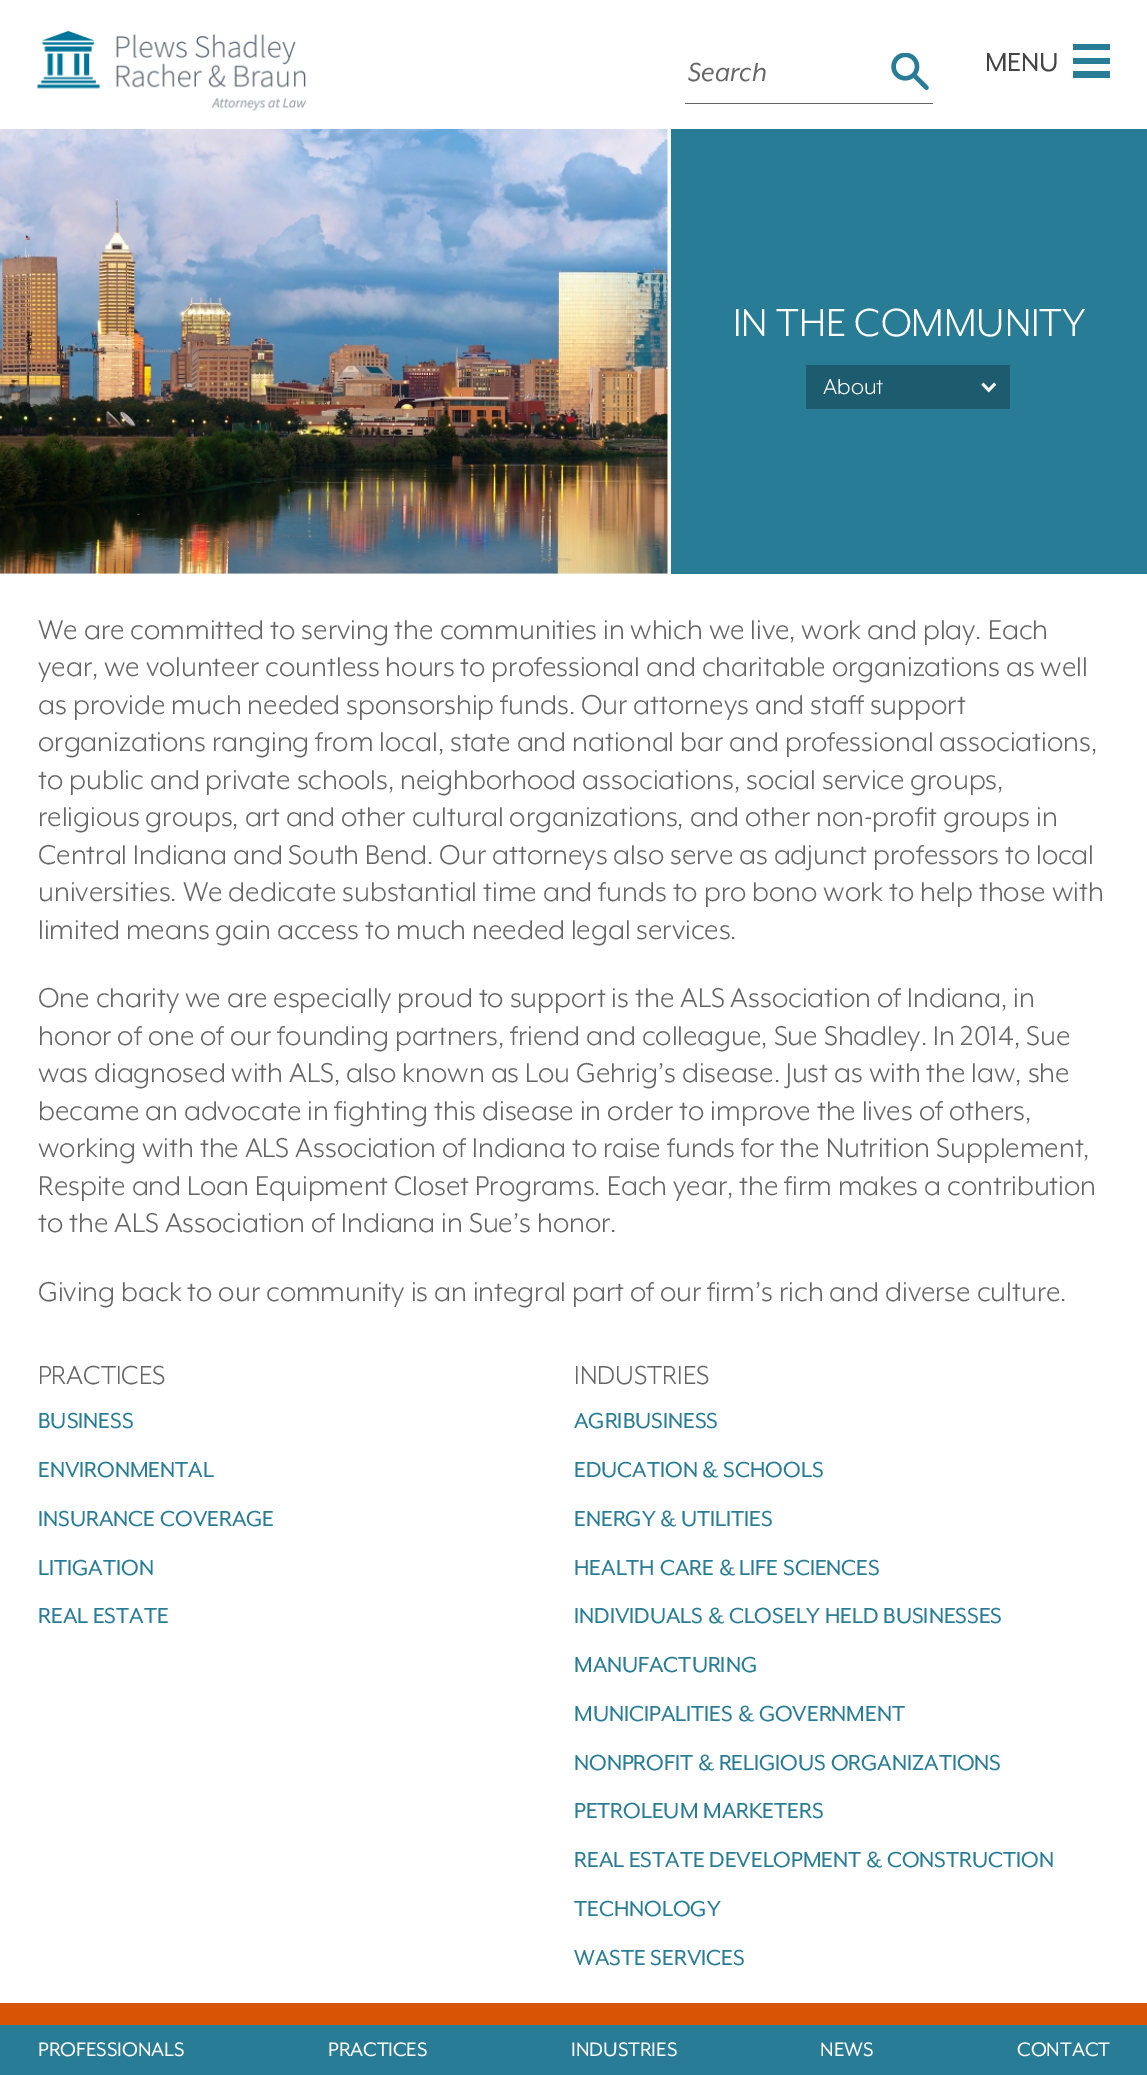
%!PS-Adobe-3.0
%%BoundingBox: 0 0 1147 2075
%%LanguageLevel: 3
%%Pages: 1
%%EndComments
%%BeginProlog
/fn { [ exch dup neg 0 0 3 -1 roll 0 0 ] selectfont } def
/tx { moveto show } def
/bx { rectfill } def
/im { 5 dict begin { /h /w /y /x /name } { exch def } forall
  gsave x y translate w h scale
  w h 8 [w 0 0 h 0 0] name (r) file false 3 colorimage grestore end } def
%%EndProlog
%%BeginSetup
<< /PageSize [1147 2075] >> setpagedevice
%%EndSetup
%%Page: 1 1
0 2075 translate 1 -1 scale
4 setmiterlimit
1 setgray
0 0 1147 2075 bx
(image0.raw) 37 31 269 80 im
0.4 setgray
685 103 248 1 bx
/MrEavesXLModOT-Italic 30 fn
(Search) 688 81 tx
(image1.raw) 891 53 38 37 im
/MrEavesXLModOT-Regular 30 fn
0.267 setgray
(MENU) 985 71 tx
0.157 0.486 0.588 setrgbcolor
1073 44 37 6 bx
1073 58 37 6 bx
1073 71 37 7 bx
(image2.raw) 0 128 668 446 im
671 129 476 445 bx
/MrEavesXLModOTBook-Regular 45 fn
1 setgray
(IN THE COMMUNITY) 733 336 tx
0.114 0.357 0.431 setrgbcolor
806 365 204 44 bx
/MrEavesXLModOTBook-Regular 25 fn
1 setgray
(About) 823 394 tx
(image3.raw) 981 382 15 11 im
/MrEavesXLModOTBook-Regular 31.25 fn
0.4 setgray
(We are committed to serving the communities in which we live, work and play. Each) 38 639 tx
(year, we volunteer countless hours to professional and charitable organizations as well) 38 676 tx
(as provide much needed sponsorship funds. Our attorneys and staff support) 38 714 tx
(organizations ranging from local, state and national bar and professional associations,) 38 751 tx
(to public and private schools, neighborhood associations, social service groups,) 38 789 tx
(religious groups, art and other cultural organizations, and other non-profit groups in) 38 826 tx
(Central Indiana and South Bend. Our attorneys also serve as adjunct professors to local) 38 864 tx
(universities. We dedicate substantial time and funds to pro bono work to help those with) 38 901 tx
(limited means gain access to much needed legal services.) 38 939 tx
(One charity we are especially proud to support is the ALS Association of Indiana, in) 38 1007 tx
(honor of one of our founding partners, friend and colleague, Sue Shadley. In 2014, Sue) 38 1045 tx
(was diagnosed with ALS, also known as Lou Gehrig’s disease. Just as with the law, she) 38 1082 tx
(became an advocate in fighting this disease in order to improve the lives of others,) 38 1120 tx
(working with the ALS Association of Indiana to raise funds for the Nutrition Supplement,) 38 1157 tx
(Respite and Loan Equipment Closet Programs. Each year, the firm makes a contribution) 38 1195 tx
(to the ALS Association of Indiana in Sue’s honor.) 38 1232 tx
(Giving back to our community is an integral part of our firm’s rich and diverse culture.) 38 1301 tx
/MrEavesXLModOTBook-Regular 30 fn
(PRACTICES) 38 1384 tx
/MrEavesXLModOT-Regular 25 fn
0.157 0.486 0.588 setrgbcolor
(BUSINESS) 38 1428 tx
(ENVIRONMENTAL) 38 1477 tx
(INSURANCE COVERAGE) 38 1526 tx
(LITIGATION) 38 1575 tx
(REAL ESTATE) 38 1623 tx
/MrEavesXLModOTBook-Regular 30 fn
0.4 setgray
(INDUSTRIES) 574 1384 tx
/MrEavesXLModOT-Regular 25 fn
0.157 0.486 0.588 setrgbcolor
(AGRIBUSINESS) 574 1428 tx
(EDUCATION & SCHOOLS) 574 1477 tx
(ENERGY & UTILITIES) 574 1526 tx
(HEALTH CARE & LIFE SCIENCES) 574 1575 tx
(INDIVIDUALS & CLOSELY HELD BUSINESSES) 574 1623 tx
(MANUFACTURING) 574 1672 tx
(MUNICIPALITIES & GOVERNMENT) 574 1721 tx
(NONPROFIT & RELIGIOUS ORGANIZATIONS) 574 1770 tx
(PETROLEUM MARKETERS) 574 1818 tx
(REAL ESTATE DEVELOPMENT & CONSTRUCTION) 574 1867 tx
(TECHNOLOGY) 574 1916 tx
(WASTE SERVICES) 574 1965 tx
0.843 0.333 0.016 setrgbcolor
0 2003 1147 22 bx
0.157 0.486 0.588 setrgbcolor
0 2025 1147 50 bx
/MrEavesXLModOT-Regular 22.5 fn
1 setgray
(PROFESSIONALS) 38 2056 tx
(PRACTICES) 328 2056 tx
(INDUSTRIES) 571 2056 tx
(NEWS) 820 2056 tx
(CONTACT) 1017 2056 tx
showpage
%%EOF
